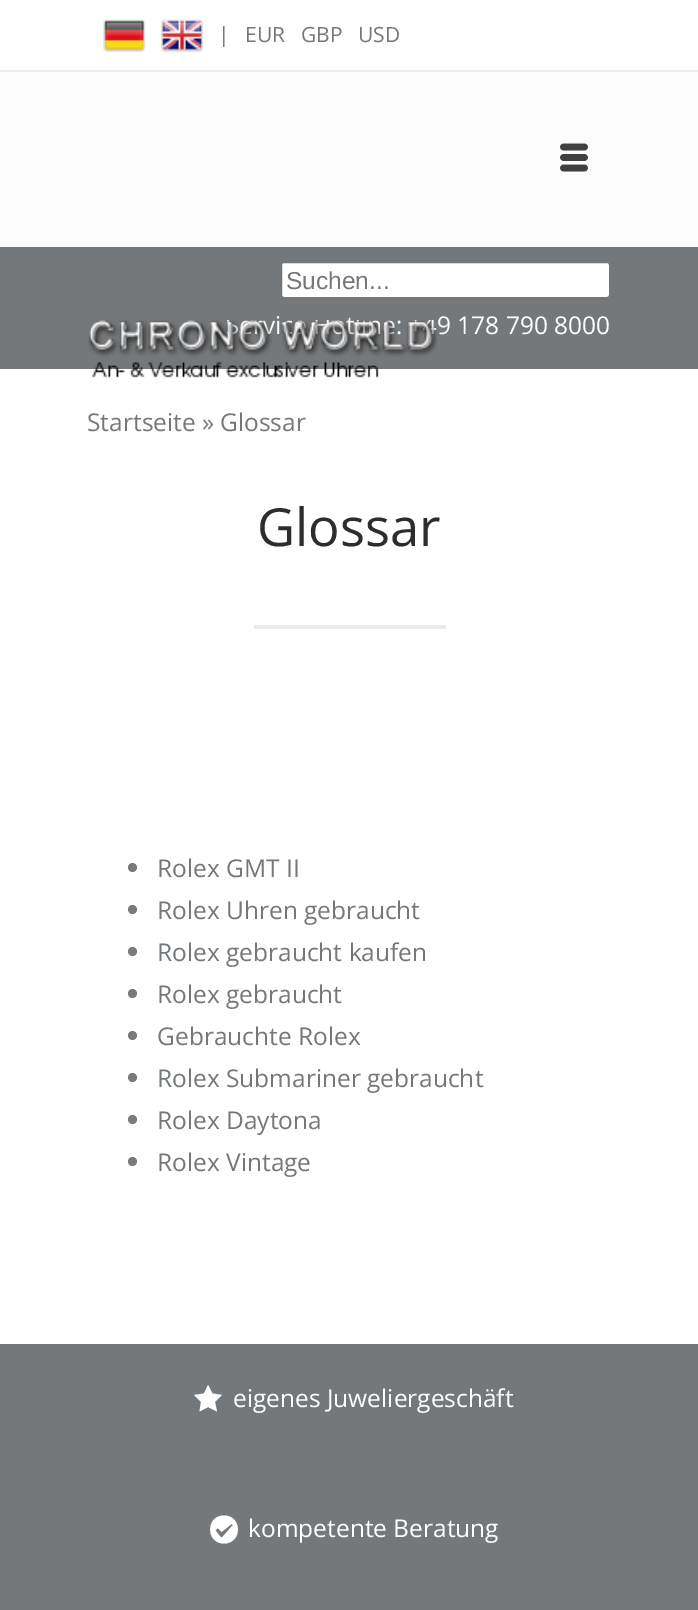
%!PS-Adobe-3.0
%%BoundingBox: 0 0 698 1610
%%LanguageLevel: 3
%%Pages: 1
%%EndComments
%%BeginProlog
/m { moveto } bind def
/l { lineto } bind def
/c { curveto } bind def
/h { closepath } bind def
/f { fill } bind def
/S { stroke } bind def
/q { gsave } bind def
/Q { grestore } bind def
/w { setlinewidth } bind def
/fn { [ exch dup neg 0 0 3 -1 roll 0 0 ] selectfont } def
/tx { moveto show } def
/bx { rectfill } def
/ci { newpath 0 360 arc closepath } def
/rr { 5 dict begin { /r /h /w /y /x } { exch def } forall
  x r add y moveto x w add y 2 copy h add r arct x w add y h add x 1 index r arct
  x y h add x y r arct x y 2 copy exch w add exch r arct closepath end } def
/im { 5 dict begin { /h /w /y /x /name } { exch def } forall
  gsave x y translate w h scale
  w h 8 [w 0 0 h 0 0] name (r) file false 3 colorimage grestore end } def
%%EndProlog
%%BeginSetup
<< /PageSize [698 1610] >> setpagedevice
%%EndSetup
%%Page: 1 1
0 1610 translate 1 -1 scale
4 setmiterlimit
1 setgray
0 0 698 1610 bx
0.929 setgray
0 70 698 2 bx
(image0.raw) 103 19 43 34 im
(image1.raw) 161 19 42 34 im
/OpenSans-Regular 21 fn
0.482 setgray
(|) 218 42 tx
0.459 0.471 0.478 setrgbcolor
(EUR) 245 42 tx
(GBP) 301 42 tx
(USD) 358 42 tx
0.988 setgray
0 72 698 175 bx
(image2.raw) 560 143 28 29 im
0.459 0.471 0.478 setrgbcolor
0 247 698 122 bx
/OpenSans-Regular 24.5 fn
1 setgray
(vi) 263 334 tx
(t) 346 334 tx
(:) 396 334 tx
(9 178 790 8000) 437 334 tx
(image3.raw) 88 320 350 58 im
281 262 329 36 3 rr q f Q
0.463 setgray
2 w
S
/LiberationSans-Regular 24.5 fn
0.459 0.471 0.478 setrgbcolor
(Suchen...) 286 289 tx
/OpenSans-Regular 24.5 fn
(Startseite) 87 431 tx
0.482 setgray
(») 202 431 tx
0.459 0.471 0.478 setrgbcolor
(Glossar) 220 431 tx
/OpenSans-Regular 52.5 fn
0.176 setgray
(Glossar) 257 546 tx
0.922 setgray
254 625 192 4 bx
0.482 setgray
132.5 867.5 4.5 ci f
/OpenSans-Regular 24.5 fn
0.459 0.471 0.478 setrgbcolor
(Rolex GMT II) 157 877 tx
0.482 setgray
132.5 909.5 4.5 ci f
0.459 0.471 0.478 setrgbcolor
(Rolex Uhren gebraucht) 157 919 tx
0.482 setgray
132.5 951.5 4.5 ci f
0.459 0.471 0.478 setrgbcolor
(Rolex gebraucht kaufen) 157 961 tx
0.482 setgray
132.5 993.5 4.5 ci f
0.459 0.471 0.478 setrgbcolor
(Rolex gebraucht) 157 1003 tx
0.482 setgray
132.5 1035.5 4.5 ci f
0.459 0.471 0.478 setrgbcolor
(Gebrauchte Rolex) 157 1045 tx
0.482 setgray
132.5 1077.5 4.5 ci f
0.459 0.471 0.478 setrgbcolor
(Rolex Submariner gebraucht) 157 1087 tx
0.482 setgray
132.5 1119.5 4.5 ci f
0.459 0.471 0.478 setrgbcolor
(Rolex Daytona) 157 1129 tx
0.482 setgray
132.5 1161.5 4.5 ci f
0.459 0.471 0.478 setrgbcolor
(Rolex Vintage) 157 1171 tx
0 1344 698 266 bx
1 setgray
222 1395 m 215 1402 l 217 1411.5 l 208 1407 l 199.5 1411.5 l 201 1402 l 194 1395 l 204 1393.5 l 208 1385 l 212.5 1393.5 l h f
(eigenes Juweliergeschäft) 233 1407 tx
224 1515.5 m 242.5 1515.5 242.5 1543.5 224 1543.5 c 205.5 1543.5 205.5 1515.5 224 1515.5 c h 221.5 1538 m 233 1525 l 231.5 1524 l 221.5 1532 l 218 1528 l 215.5 1530.5 l h f
(kompetente Beratung) 248 1537 tx
showpage
%%EOF
